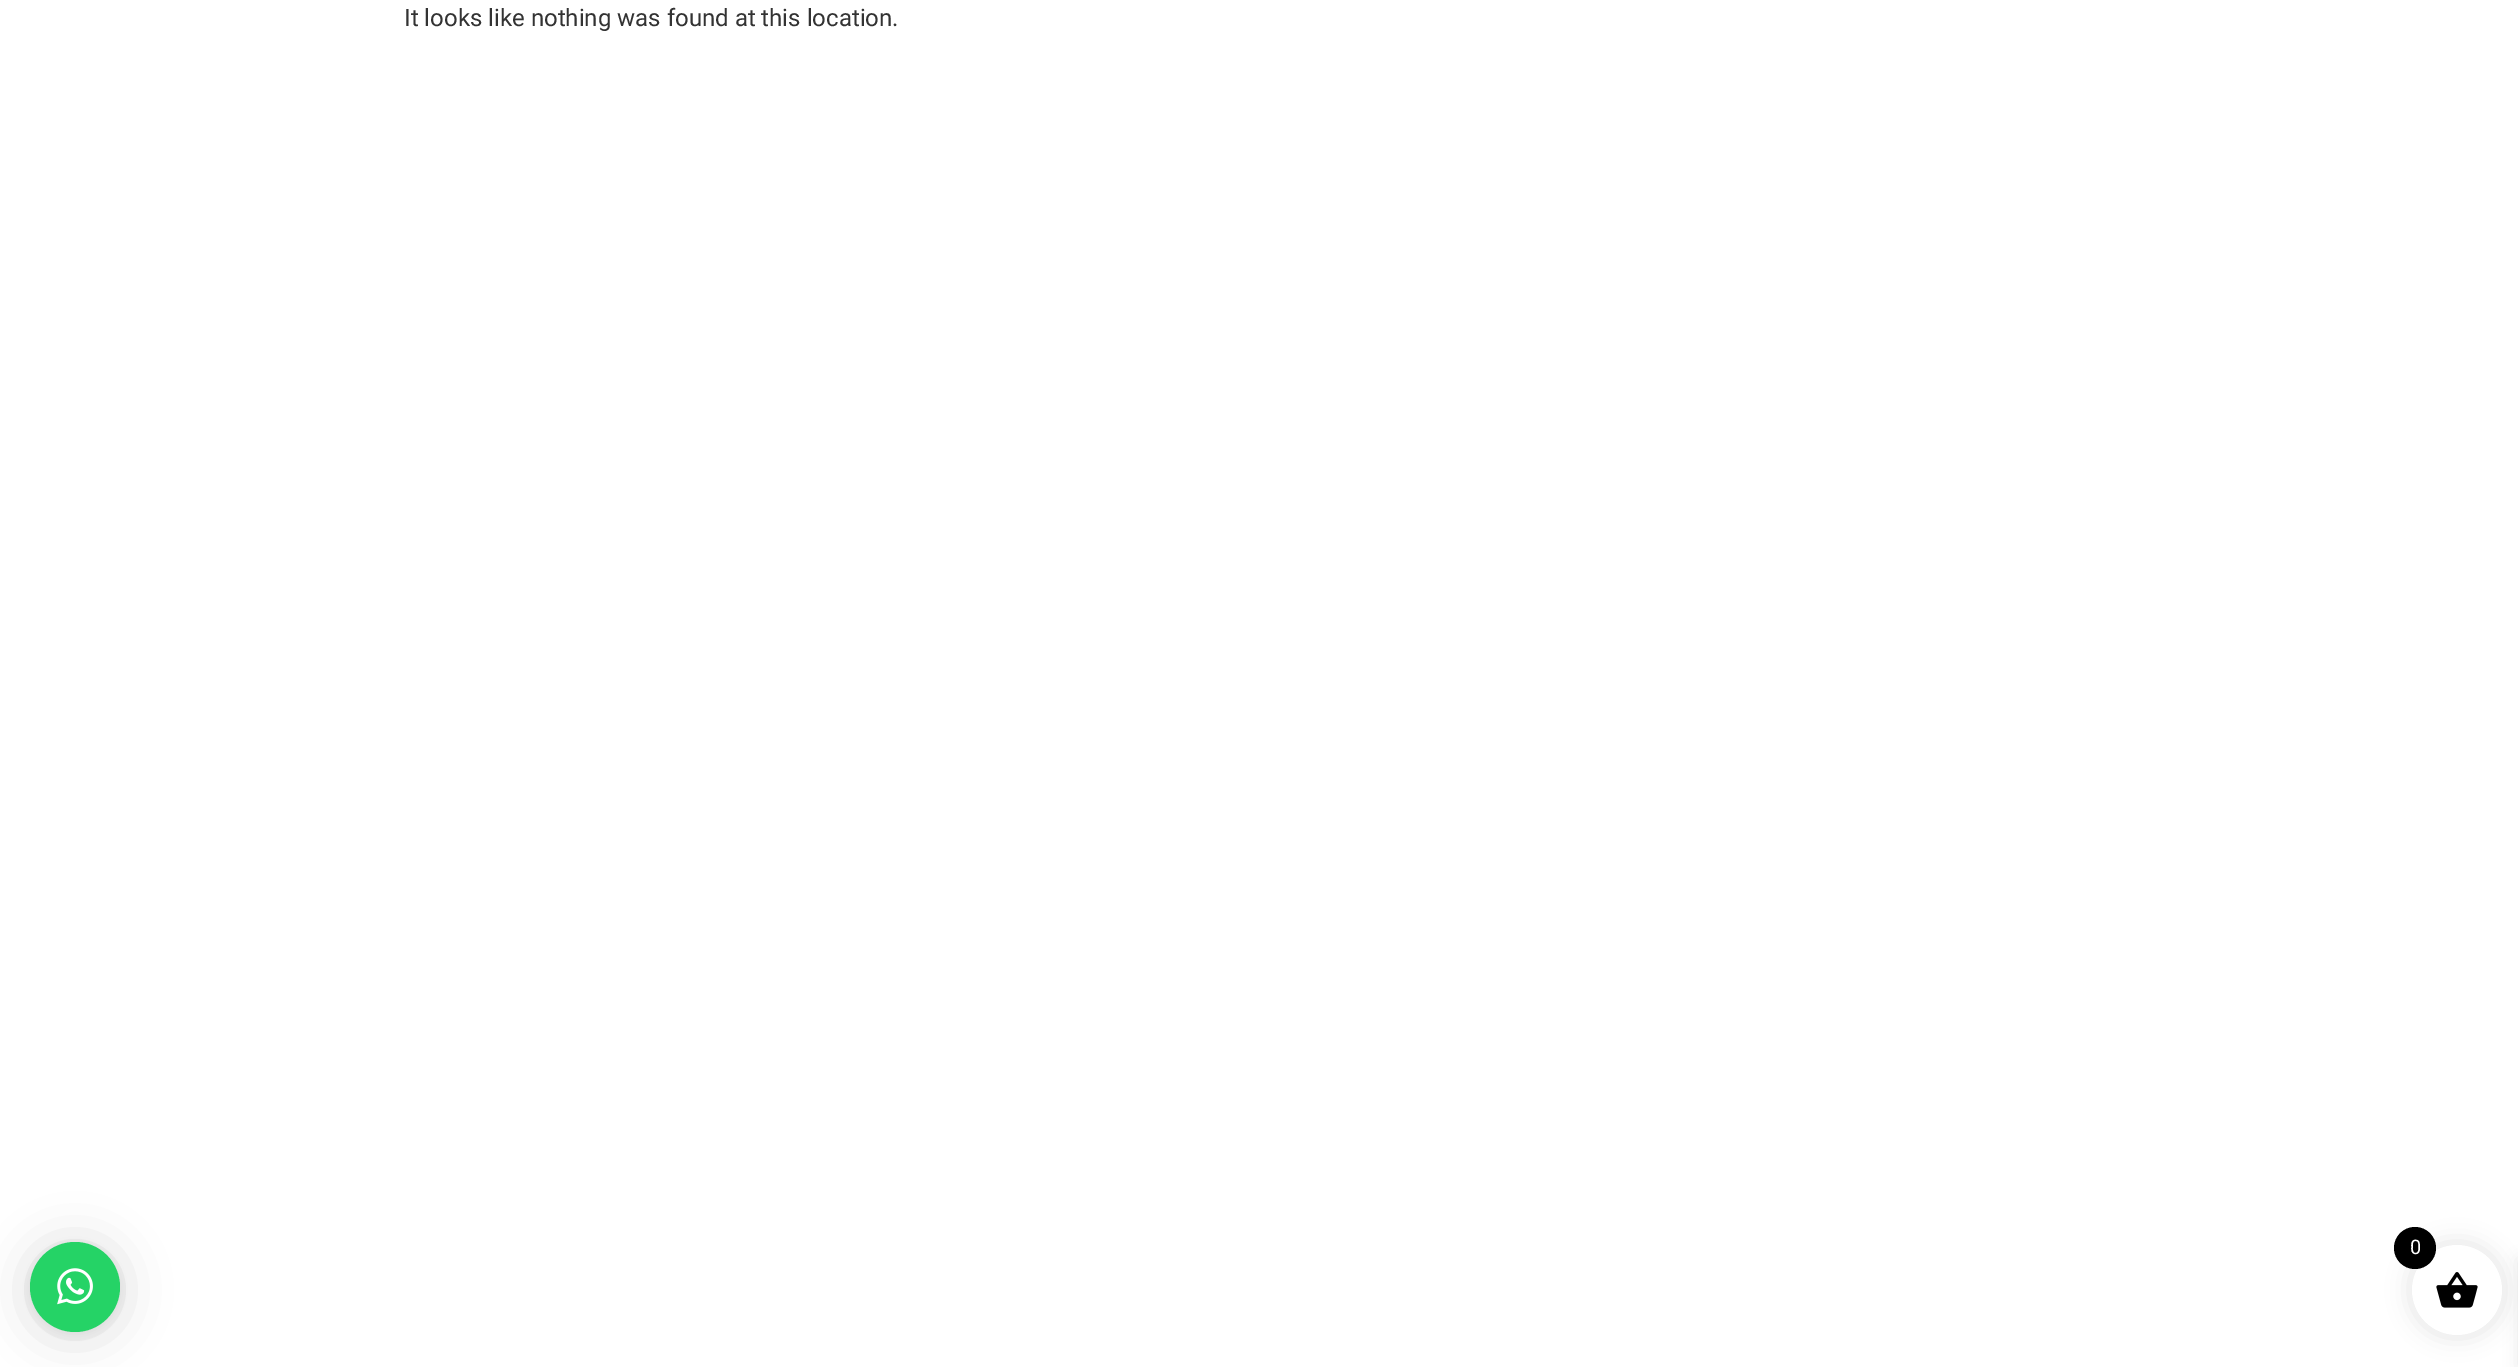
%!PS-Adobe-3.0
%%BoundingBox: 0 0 2518 1367
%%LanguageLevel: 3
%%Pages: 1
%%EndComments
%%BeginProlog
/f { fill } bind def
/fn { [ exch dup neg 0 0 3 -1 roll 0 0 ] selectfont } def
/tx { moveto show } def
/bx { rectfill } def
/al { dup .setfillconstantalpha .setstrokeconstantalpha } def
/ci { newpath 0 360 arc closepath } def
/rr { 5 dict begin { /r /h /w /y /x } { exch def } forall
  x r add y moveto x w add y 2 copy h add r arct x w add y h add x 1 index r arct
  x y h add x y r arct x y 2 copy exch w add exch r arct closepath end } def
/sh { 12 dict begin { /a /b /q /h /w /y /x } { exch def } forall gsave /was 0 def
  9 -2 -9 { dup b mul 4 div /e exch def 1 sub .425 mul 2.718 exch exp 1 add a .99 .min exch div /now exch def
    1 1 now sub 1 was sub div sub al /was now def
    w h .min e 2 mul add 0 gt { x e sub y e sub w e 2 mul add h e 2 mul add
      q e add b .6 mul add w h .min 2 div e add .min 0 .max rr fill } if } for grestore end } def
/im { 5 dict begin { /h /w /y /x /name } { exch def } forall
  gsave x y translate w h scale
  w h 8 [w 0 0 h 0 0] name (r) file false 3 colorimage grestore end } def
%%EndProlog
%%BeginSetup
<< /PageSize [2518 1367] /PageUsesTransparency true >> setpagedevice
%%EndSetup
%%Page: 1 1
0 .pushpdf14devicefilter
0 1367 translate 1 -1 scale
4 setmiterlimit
1 setgray
0 0 2518 1367 bx
/Roboto-Regular 24 fn
0.2 setgray
(It looks like nothing was found at this location.) 404 26 tx
0 setgray
30 1245 90 90 45 24 0.16 sh
30 1244 90 90 45 4.5 0.06 sh
0.145 0.827 0.4 setrgbcolor
75 1287 45 ci f
(image0.raw) 57 1268 36 37 im
0 setgray
2409 1242 96 96 48 11 0.1 sh
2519 1260 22 107 0 7.5 0.1 sh
1 setgray
2457 1290 45 ci f
0 setgray
2415 1248 21 ci f
/Roboto-Regular 20 fn
1 setgray
(0) 2410 1254 tx
(image1.raw) 2436 1272 42 36 im
.poppdf14devicefilter showpage
%%EOF
